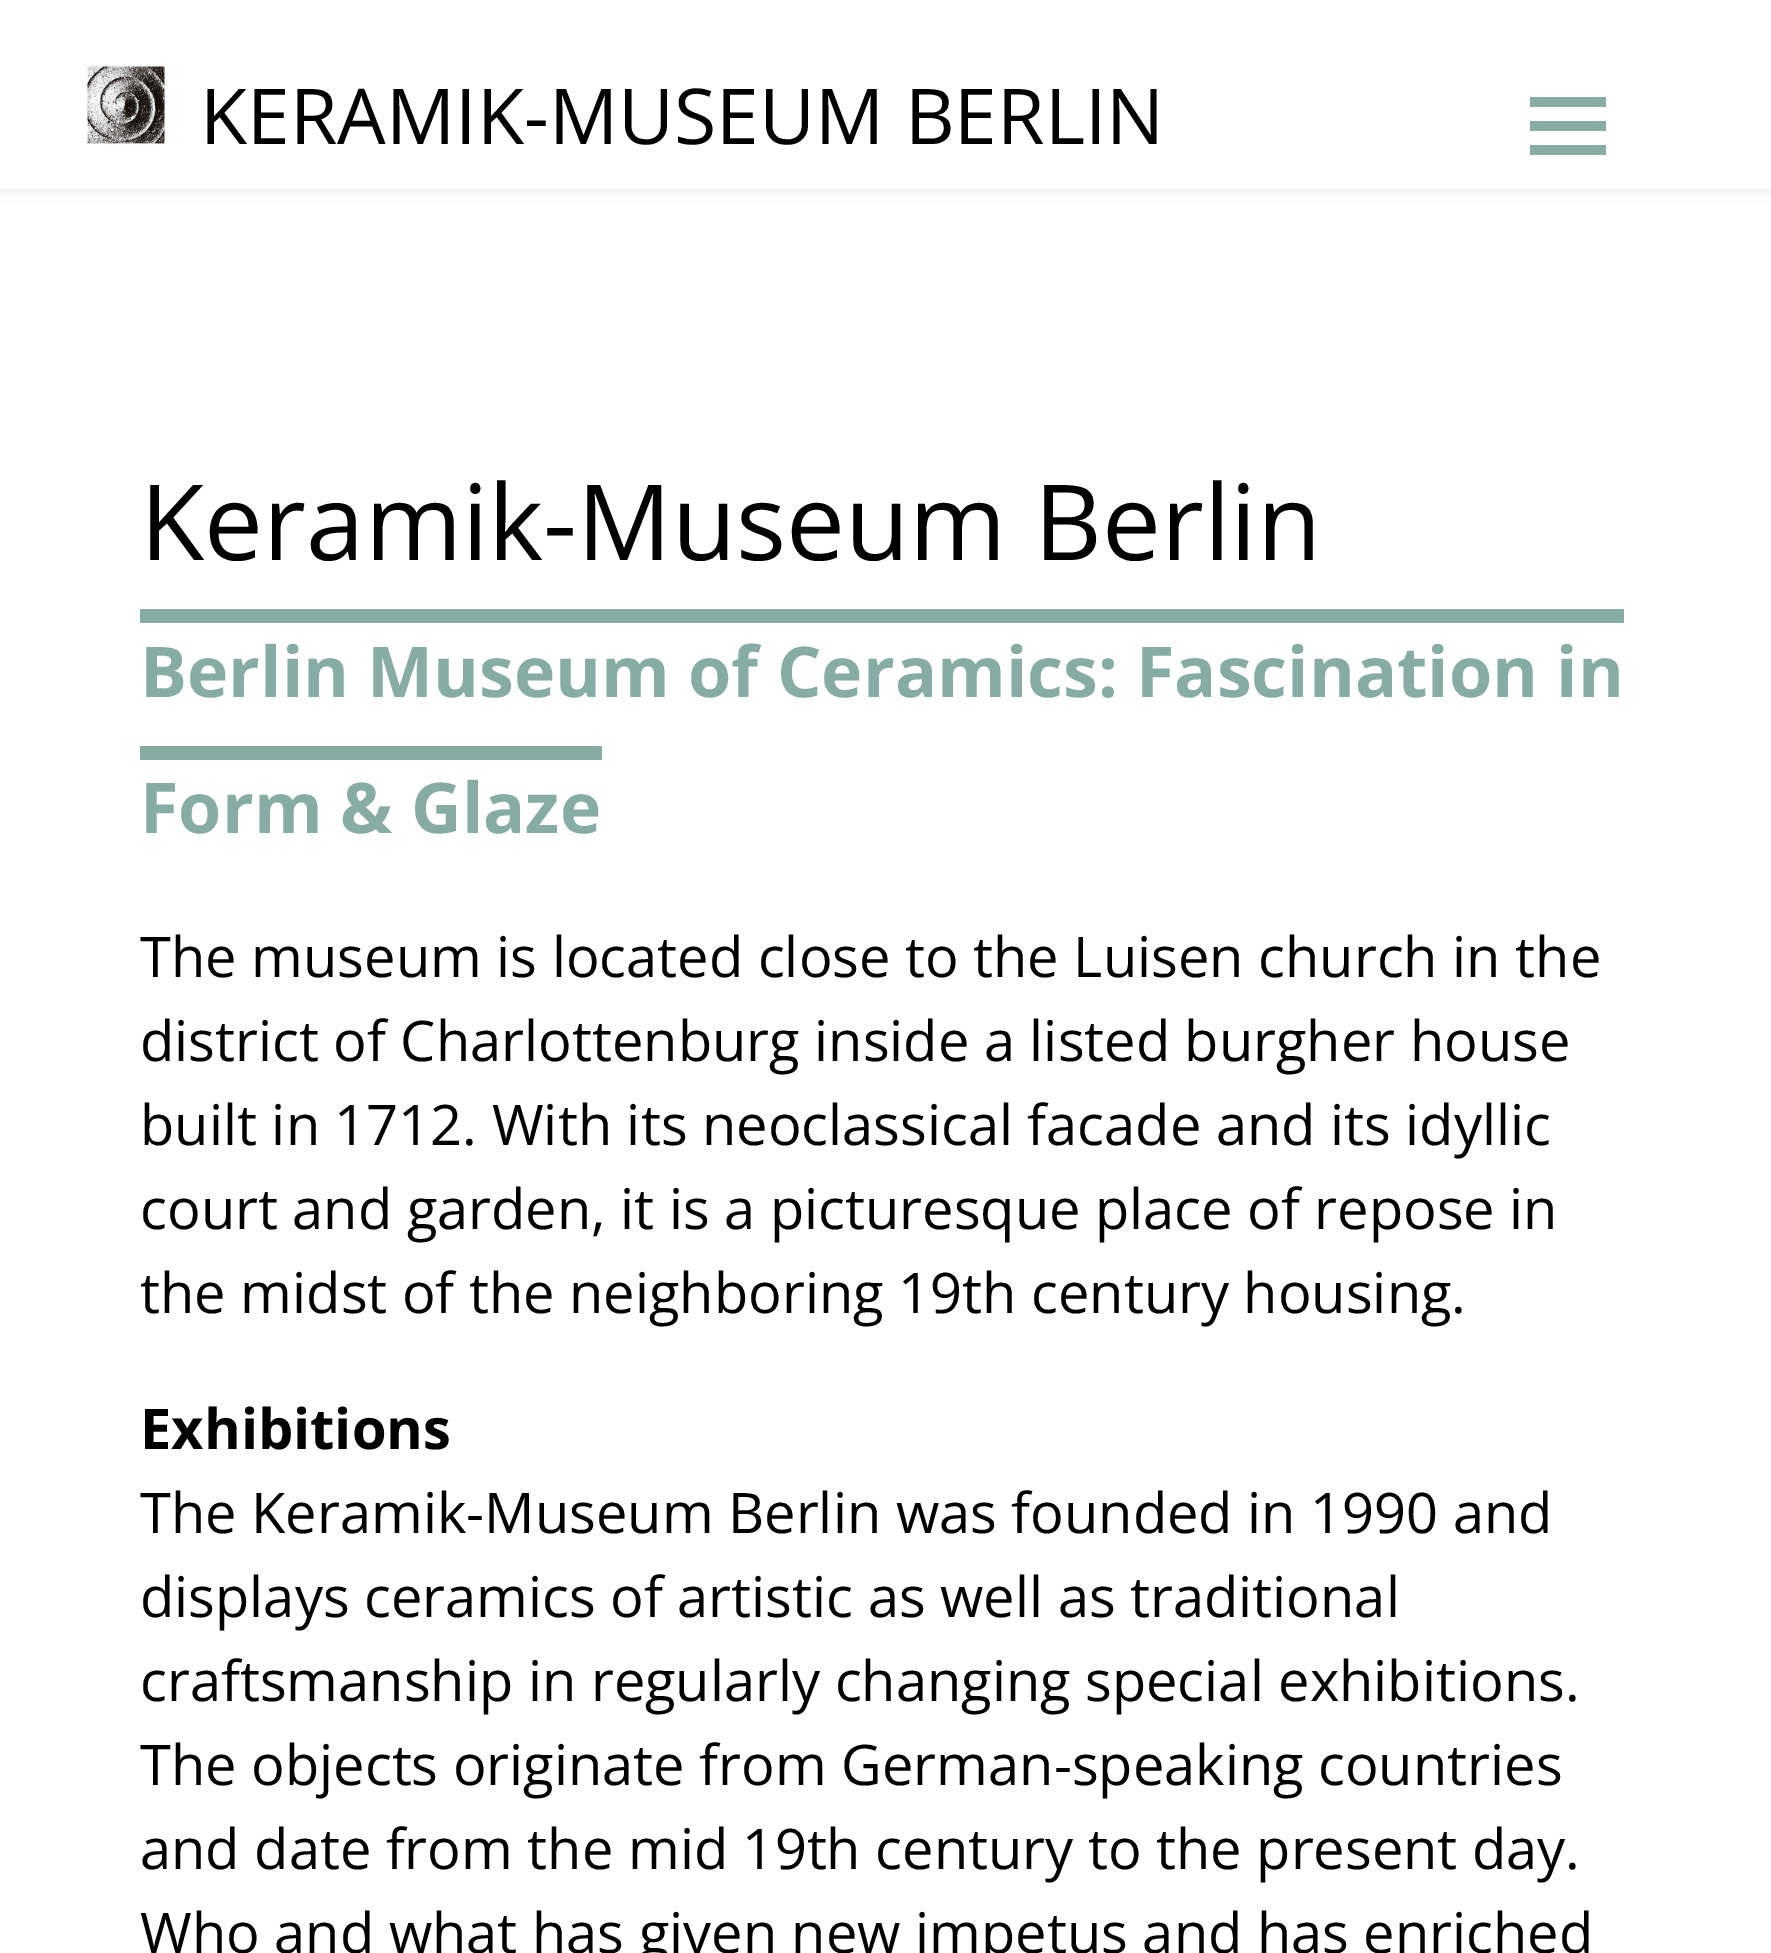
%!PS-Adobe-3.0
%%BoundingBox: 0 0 1771 1953
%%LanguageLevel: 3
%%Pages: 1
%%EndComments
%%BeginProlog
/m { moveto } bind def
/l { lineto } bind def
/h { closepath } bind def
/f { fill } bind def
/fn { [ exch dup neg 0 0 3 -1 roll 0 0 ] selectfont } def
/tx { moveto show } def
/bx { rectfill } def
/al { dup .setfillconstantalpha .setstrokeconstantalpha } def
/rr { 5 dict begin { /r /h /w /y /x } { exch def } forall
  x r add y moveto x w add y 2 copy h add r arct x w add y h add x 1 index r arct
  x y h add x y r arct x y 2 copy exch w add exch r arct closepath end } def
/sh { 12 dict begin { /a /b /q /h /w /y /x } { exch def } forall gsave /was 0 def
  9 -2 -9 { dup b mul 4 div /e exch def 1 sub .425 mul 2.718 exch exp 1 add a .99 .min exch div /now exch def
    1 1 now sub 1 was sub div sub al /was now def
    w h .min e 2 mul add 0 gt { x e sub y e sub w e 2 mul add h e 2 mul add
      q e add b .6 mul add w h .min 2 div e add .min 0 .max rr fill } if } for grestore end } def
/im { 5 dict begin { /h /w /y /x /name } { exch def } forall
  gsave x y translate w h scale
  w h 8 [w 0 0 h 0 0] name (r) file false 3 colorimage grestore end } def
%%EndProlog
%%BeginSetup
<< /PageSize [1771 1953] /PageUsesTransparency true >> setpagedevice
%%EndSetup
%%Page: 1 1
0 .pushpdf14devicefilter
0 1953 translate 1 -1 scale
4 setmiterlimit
1 setgray
0 0 1771 1953 bx
0.89 setgray
-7 -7 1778 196 0 7 1 sh
1 setgray
0 0 1771 189 bx
(image0.raw) 87 66 78 78 im
/OpenSans-Regular 77 fn
0 setgray
(KERAMIK-MUSEUM BERLIN) 200 144 tx
0.525 0.675 0.639 setrgbcolor
1530 155 m 1530 145 l 1606 145 l 1606 155 l h 1530 97 m 1606 97 l 1606 107 l 1530 107 l h 1530 131 m 1530 121 l 1606 121 l 1606 131 l h f
/OpenSans-Regular 105 fn
0 setgray
(Keramik-Museum Berlin) 140 560 tx
/OpenSans-Bold 70 fn
0.525 0.675 0.639 setrgbcolor
(Berlin Museum of Ceramics: Fascination in) 140 697 tx
140 609 1484 14 bx
(Form & Glaze) 140 833 tx
140 746 462 14 bx
/OpenSans-Regular 56 fn
0 setgray
(The museum is located close to the Luisen church in the) 140 977 tx
(district of Charlottenburg inside a listed burgher house) 140 1061 tx
(built in 1712. With its neoclassical facade and its idyllic) 140 1145 tx
(court and garden, it is a picturesque place of repose in) 140 1229 tx
(the midst of the neighboring 19th century housing.) 140 1313 tx
/OpenSans-Bold 56 fn
(Exhibitions) 140 1449 tx
/OpenSans-Regular 56 fn
(The Keramik-Museum Berlin was founded in 1990 and) 140 1533 tx
(displays ceramics of artistic as well as traditional) 140 1617 tx
(craftsmanship in regularly changing special exhibitions.) 140 1701 tx
(The objects originate from German-speaking countries) 140 1785 tx
(and date from the mid 19th century to the present day.) 140 1869 tx
(Who and what has given new impetus and has enriched) 140 1953 tx
.poppdf14devicefilter showpage
%%EOF
